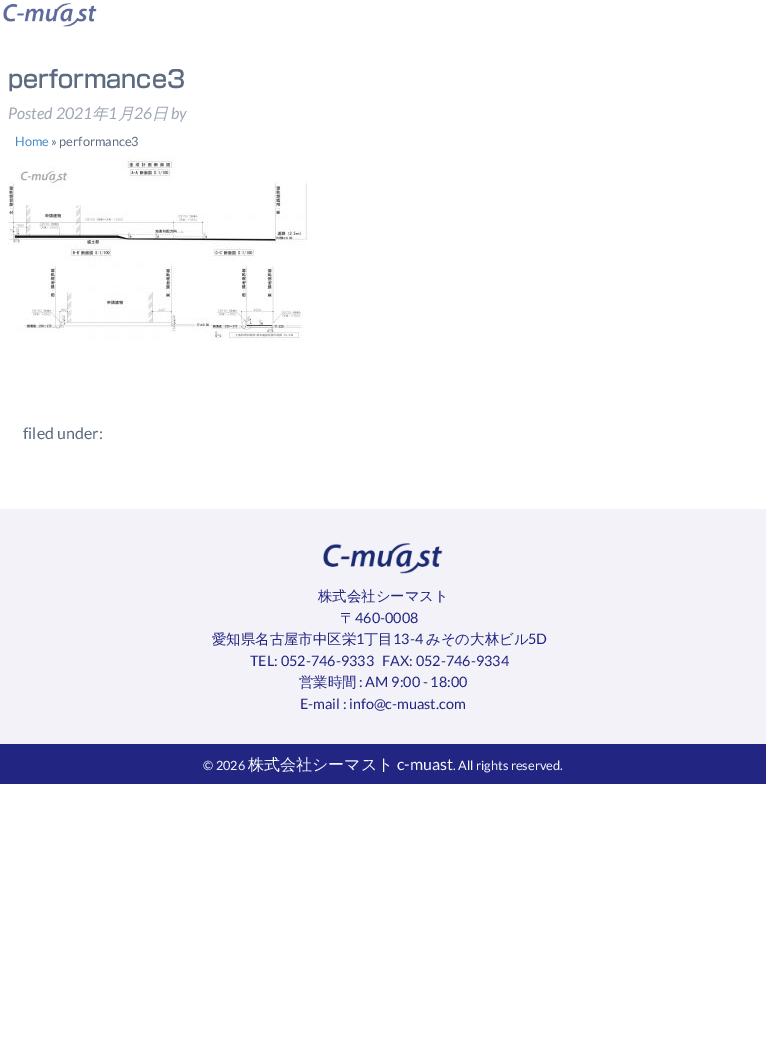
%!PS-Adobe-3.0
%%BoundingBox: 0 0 766 1054
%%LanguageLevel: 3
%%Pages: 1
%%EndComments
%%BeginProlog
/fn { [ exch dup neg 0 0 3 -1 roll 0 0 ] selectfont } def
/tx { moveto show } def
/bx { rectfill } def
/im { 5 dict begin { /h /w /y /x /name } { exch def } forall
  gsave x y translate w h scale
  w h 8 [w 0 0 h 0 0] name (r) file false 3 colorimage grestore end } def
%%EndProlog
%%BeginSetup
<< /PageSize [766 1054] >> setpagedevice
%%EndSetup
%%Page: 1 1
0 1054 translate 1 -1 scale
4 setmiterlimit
1 setgray
0 0 766 1054 bx
/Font-Medium 24 fn
0.361 0.42 0.502 setrgbcolor
(performance3) 8 88 tx
/Lato-Italic 16 fn
0.624 0.651 0.706 setrgbcolor
(Posted 2021) 8 119 tx
/WenQuanYiZenHei-MediumItalic 16 fn
(年) 92 119 tx
/Lato-Italic 16 fn
(1) 108 119 tx
/WenQuanYiZenHei-MediumItalic 16 fn
(月) 118 119 tx
/Lato-Italic 16 fn
(26) 134 119 tx
/WenQuanYiZenHei-MediumItalic 16 fn
(日) 152 119 tx
/Lato-Italic 16 fn
(by) 171 119 tx
(image0.raw) 8 157 300 184 im
/Lato-Regular 16 fn
0.361 0.42 0.502 setrgbcolor
(filed under:) 23 439 tx
(image1.raw) 3 3 94 24 im
/Lato-Regular 12.75 fn
0.259 0.545 0.792 setrgbcolor
(Home) 15 146 tx
0.361 0.42 0.502 setrgbcolor
(» performance3) 51 146 tx
0.949 0.949 0.973 setrgbcolor
0 509 766 235 bx
(image2.raw) 323 543 120 31 im
/WenQuanYiZenHei-Medium 14.4 fn
0.137 0.145 0.514 setrgbcolor
(株式会社シーマスト) 318 601 tx
(〒) 340 623 tx
/Lato-Regular 14.4 fn
(460-0008) 355 623 tx
/WenQuanYiZenHei-Medium 14.4 fn
(愛知県名古屋市中区栄) 212 644 tx
/Lato-Regular 14.4 fn
(1) 356 644 tx
/WenQuanYiZenHei-Medium 14.4 fn
(丁目) 364 644 tx
/Lato-Regular 14.4 fn
(13-4) 393 644 tx
/WenQuanYiZenHei-Medium 14.4 fn
(みその大林ビル) 426 644 tx
/Lato-Regular 14.4 fn
(5D) 528 644 tx
(TEL: 052-746-9333) 250 666 tx
(FAX: 052-746-9334) 382 666 tx
/WenQuanYiZenHei-Medium 14.4 fn
(営業時間) 299 687 tx
/Lato-Regular 14.4 fn
(: AM 9:00 - 18:00) 359 687 tx
(E-mail : info@c-muast.com) 300 709 tx
0 744 766 40 bx
/Lato-Regular 12.75 fn
0.973 0.976 0.98 setrgbcolor
(© 2026) 203 770 tx
/WenQuanYiZenHei-Medium 16 fn
(株式会社シーマスト) 248 770 tx
/Lato-Regular 16 fn
(c-muast) 397 770 tx
/Lato-Regular 12.75 fn
(. All rights reserved.) 453 770 tx
showpage
%%EOF
